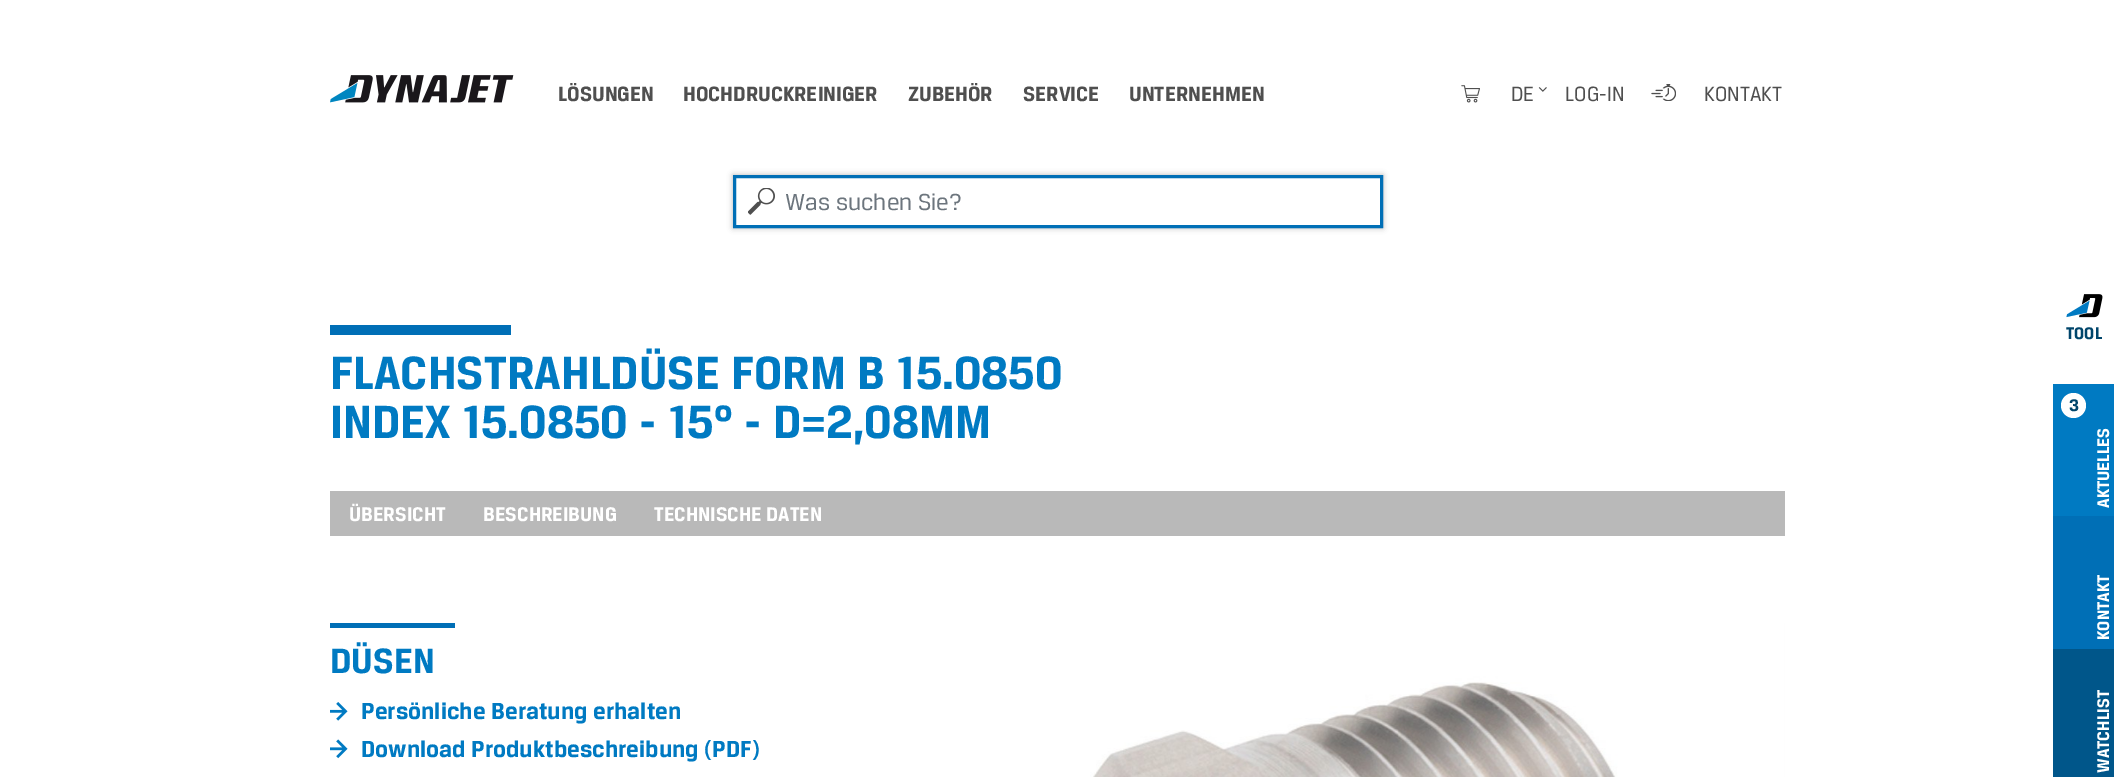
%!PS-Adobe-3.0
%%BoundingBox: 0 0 2114 777
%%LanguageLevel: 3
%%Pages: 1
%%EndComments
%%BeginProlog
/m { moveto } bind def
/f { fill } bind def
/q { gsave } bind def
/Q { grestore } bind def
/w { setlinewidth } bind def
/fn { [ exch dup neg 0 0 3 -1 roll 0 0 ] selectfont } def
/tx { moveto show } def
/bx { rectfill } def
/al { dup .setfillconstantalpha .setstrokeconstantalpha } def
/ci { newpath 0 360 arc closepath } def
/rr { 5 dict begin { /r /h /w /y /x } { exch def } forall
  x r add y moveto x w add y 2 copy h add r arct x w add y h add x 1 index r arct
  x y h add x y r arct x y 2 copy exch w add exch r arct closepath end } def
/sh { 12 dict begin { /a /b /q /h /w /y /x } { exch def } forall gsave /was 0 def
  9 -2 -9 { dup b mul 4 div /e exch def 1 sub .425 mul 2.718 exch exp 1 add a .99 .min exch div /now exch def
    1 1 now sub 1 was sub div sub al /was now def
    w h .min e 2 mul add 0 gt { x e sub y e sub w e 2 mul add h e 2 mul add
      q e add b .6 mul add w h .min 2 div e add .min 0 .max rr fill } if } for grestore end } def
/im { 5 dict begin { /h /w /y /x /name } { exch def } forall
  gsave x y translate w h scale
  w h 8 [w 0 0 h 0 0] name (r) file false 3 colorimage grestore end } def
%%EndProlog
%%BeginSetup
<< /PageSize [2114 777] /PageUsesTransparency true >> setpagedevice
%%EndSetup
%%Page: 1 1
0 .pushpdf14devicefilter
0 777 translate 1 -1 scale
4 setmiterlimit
1 setgray
0 0 2114 777 bx
(image0.raw) 330 75 184 28 im
/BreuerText-Bold 20 fn
0.31 setgray
(LÖSUNGEN) 558 101 tx
(HOCHDRUCKREINIGER) 683 101 tx
(ZUBEHÖR) 908 101 tx
(SERVICE) 1023 101 tx
(UNTERNEHMEN) 1129 101 tx
(image1.raw) 1461 85 19 18 im
/BreuerText-Medium 20 fn
(DE) 1511 101 tx
(image2.raw) 1538 87 9 5 im
(LOG-IN) 1565 101 tx
(image3.raw) 1651 84 25 17 im
(KONTAKT) 1704 101 tx
0.698 setgray
733 175 650 53 0 3 1 sh
1 setgray
736 178 644 47 bx
(image4.raw) 748 188 27 27 im
0 0.435 0.714 setrgbcolor
3 w
734.5 176.5 647 50 rectstroke
/BreuerText-Medium 22.5 fn
0.424 0.459 0.49 setrgbcolor
(Was suchen Sie?) 785 210 tx
0 0.435 0.714 setrgbcolor
330 325 181 10 bx
/BreuerText-Bold 45 fn
0 0.478 0.761 setrgbcolor
(FLACHSTRAHLDÜSE FORM B 15.0850) 330 389 tx
(INDEX 15.0850 - 15° - D=2,08MM) 330 438 tx
(image5.raw) 2066 294 37 24 im
/BreuerText-Bold 16.25 fn
0 0.271 0.42 setrgbcolor
(TOOL) 2066 339 tx
0 0.478 0.761 setrgbcolor
2053 384 61 132 bx
1 setgray
2073.5 405.5 12.5 ci f
0 0.271 0.42 setrgbcolor
(3) 2069 411 tx
1 setgray
q 2109 508 translate -90 rotate 0 0 m (AKTUELLES) show Q
0 0.435 0.714 setrgbcolor
2053 516 61 133 bx
1 setgray
q 2109 640 translate -90 rotate 0 0 m (KONTAKT) show Q
0 0.337 0.541 setrgbcolor
2053 649 61 128 bx
1 setgray
q 2109 773 translate -90 rotate 0 0 m (WATCHLIST) show Q
0.725 setgray
330 491 1455 45 bx
/BreuerText-Bold 19.1 fn
1 setgray
(ÜBERSICHT) 349 521 tx
(BESCHREIBUNG) 483 521 tx
(TECHNISCHE DATEN) 654 521 tx
0 0.435 0.714 setrgbcolor
330 623 125 5 bx
/BreuerText-Bold 34 fn
0 0.478 0.761 setrgbcolor
(DÜSEN) 330 673 tx
(image6.raw) 330 702 18 19 im
/BreuerText-Bold 22.5 fn
(Persönliche Beratung erhalten) 361 719 tx
(image7.raw) 330 739 18 20 im
(Download Produktbeschreibung \(PDF\)) 361 757 tx
(image8.raw) 826 623 959 154 im
.poppdf14devicefilter showpage
%%EOF
